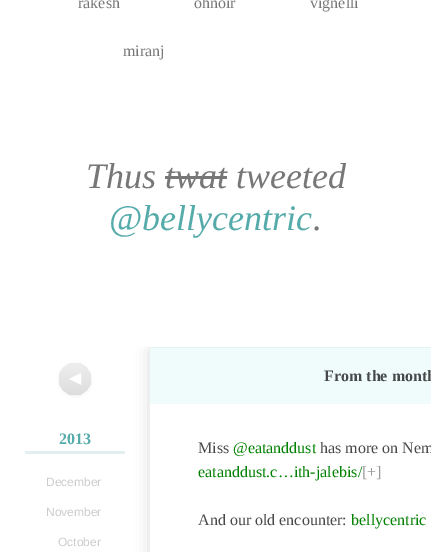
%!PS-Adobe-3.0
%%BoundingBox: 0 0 431 552
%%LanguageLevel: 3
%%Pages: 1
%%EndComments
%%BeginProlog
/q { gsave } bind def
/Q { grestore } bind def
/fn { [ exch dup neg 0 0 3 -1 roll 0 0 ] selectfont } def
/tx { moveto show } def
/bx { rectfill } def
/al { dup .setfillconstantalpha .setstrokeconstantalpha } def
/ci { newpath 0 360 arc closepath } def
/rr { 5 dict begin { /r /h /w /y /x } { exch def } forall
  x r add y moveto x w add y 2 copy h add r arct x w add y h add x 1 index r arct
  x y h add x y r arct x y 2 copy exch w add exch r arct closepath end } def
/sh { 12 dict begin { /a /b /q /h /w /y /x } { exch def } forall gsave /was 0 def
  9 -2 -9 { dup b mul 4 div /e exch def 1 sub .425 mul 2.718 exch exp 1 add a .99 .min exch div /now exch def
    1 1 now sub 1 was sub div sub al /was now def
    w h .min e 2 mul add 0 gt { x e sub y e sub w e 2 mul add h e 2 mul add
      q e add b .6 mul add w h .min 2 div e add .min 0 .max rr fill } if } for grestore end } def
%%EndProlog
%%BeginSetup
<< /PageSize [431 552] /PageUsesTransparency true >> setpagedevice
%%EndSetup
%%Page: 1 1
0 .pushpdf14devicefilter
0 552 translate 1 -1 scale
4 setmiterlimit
1 setgray
0 0 431 552 bx
/LiberationSerif-Regular 16 fn
0.467 setgray
(rakesh) 78 8 tx
(ohnoir) 194 8 tx
(vignelli) 310 8 tx
(miranj) 123 56 tx
/LiberationSerif-Italic 36 fn
(Thus twat tweeted) 86 188 tx
165 176 62 3 bx
0.333 0.667 0.667 setrgbcolor
(@bellycentric) 109 230 tx
0.467 setgray
(.) 313 230 tx
0.933 setgray
59 364 32 32 16 1.5 1 sh
q 75 379 16 ci clip newpath
<< /ShadingType 2 /ColorSpace /DeviceRGB /Coords [59 363 59 395] /Extend [true true] /Function << /FunctionType 2 /Domain [0 1] /C0 [0.933 0.933 0.933] /C1 [0.867 0.867 0.867] /N 1 >> >> shfill Q
/DejaVuSans-Regular 16 fn
1 setgray
(◀) 69 383 tx
0.89 0.933 0.933 setrgbcolor
25 451 100 3 bx
/LiberationSerif-Bold 16 fn
0.333 0.667 0.667 setrgbcolor
(2013) 59 444 tx
/LiberationSans-Regular 12 fn
0.8 setgray
(December) 46 486 tx
(November) 46 516 tx
(October) 58 546 tx
q
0 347 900 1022 rectclip
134 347 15 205 rectclip
0.867 setgray
149 350 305 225 0 7.5 1 sh
Q
0.933 setgray
149 347 1 205 bx
0.941 0.988 0.988 setrgbcolor
150 348 281 56 bx
0.89 0.953 0.953 setrgbcolor
150 347 281 1 bx
/LiberationSerif-Bold 16 fn
0.278 0.286 0.286 setrgbcolor
(From the month) 324 381 tx
/LiberationSerif-Regular 16 fn
(Miss) 198 453 tx
0 0.502 0 setrgbcolor
(@eatanddust) 233 453 tx
0.278 0.286 0.286 setrgbcolor
(has more on Nem) 320 453 tx
0 0.502 0 setrgbcolor
(eatanddust.c…ith-jalebis/) 198 477 tx
0.6 setgray
([+]) 362 477 tx
0.278 0.286 0.286 setrgbcolor
(And our old encounter:) 198 525 tx
0 0.502 0 setrgbcolor
(bellycentric) 351 525 tx
.poppdf14devicefilter showpage
%%EOF
